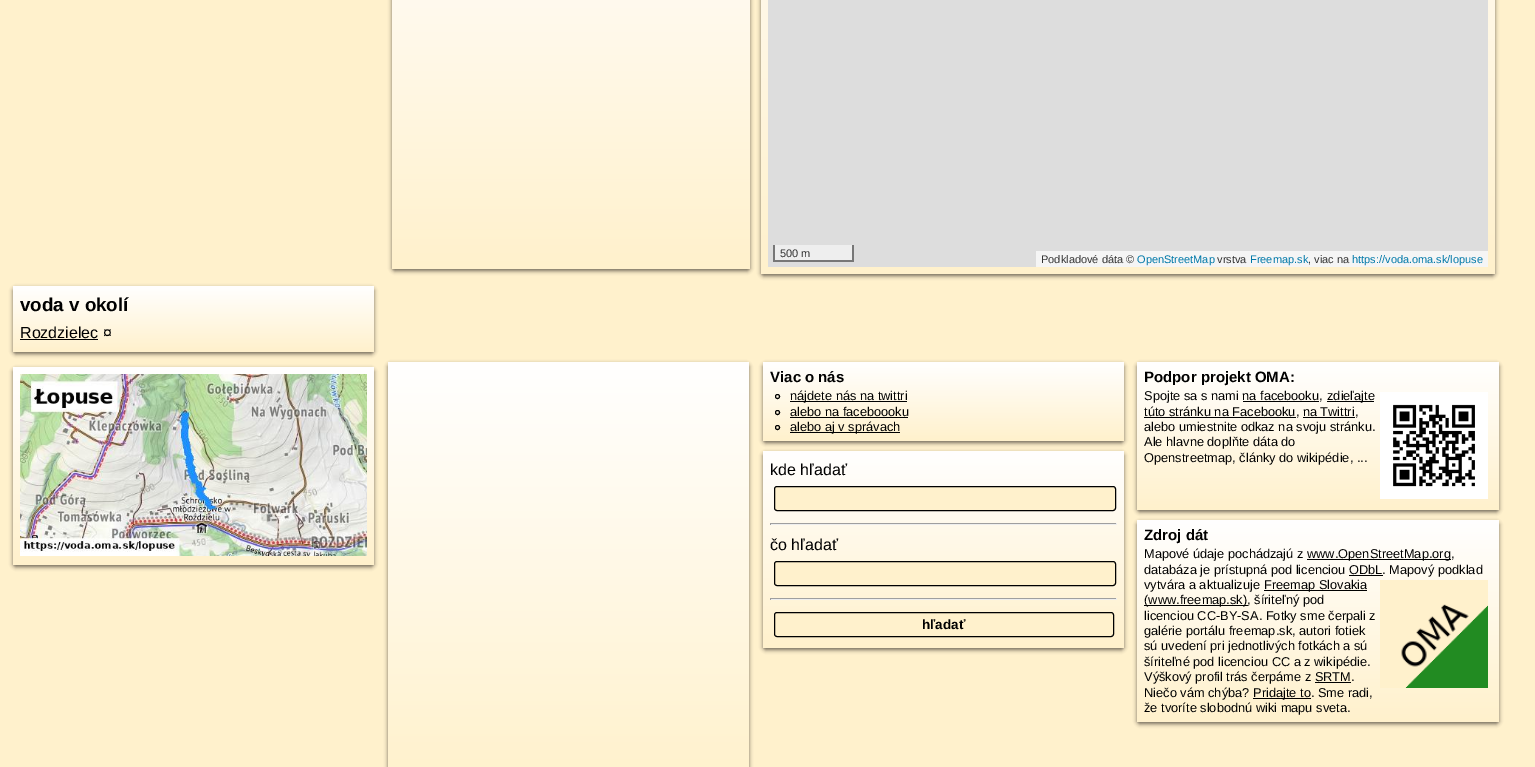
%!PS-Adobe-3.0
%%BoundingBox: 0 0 1535 767
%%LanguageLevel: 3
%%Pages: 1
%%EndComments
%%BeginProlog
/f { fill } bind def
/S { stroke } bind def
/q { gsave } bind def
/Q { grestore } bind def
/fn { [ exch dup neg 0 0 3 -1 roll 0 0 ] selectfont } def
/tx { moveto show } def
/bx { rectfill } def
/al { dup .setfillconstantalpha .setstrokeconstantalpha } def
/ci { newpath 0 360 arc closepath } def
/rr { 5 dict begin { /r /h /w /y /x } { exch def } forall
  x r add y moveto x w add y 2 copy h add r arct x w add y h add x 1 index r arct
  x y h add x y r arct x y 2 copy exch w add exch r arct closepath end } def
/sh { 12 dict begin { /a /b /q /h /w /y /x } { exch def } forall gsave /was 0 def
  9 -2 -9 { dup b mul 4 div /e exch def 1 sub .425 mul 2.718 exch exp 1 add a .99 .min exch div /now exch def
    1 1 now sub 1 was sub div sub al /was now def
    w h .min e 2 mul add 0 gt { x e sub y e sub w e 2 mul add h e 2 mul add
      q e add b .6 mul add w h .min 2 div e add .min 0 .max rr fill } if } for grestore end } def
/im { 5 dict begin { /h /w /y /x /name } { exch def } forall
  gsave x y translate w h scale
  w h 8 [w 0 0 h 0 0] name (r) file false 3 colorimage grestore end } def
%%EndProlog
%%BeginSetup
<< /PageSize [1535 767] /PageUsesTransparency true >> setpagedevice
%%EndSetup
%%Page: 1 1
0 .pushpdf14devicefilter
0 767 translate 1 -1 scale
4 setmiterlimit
1 0.945 0.8 setrgbcolor
0 0 1535 767 bx
0 setgray
392 -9 358 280 3 2 0.55 sh
q 392 -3 358 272 3 rr clip newpath
<< /ShadingType 2 /ColorSpace /DeviceRGB /Coords [571 -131 571 269] /Extend [true true] /Function << /FunctionType 2 /Domain [0 1] /C0 [1 1 1] /C1 [1 0.945 0.8] /N 1 >> >> shfill Q
761 -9 734 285 3 2 0.55 sh
q 761 -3 734 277 3 rr clip newpath
<< /ShadingType 2 /ColorSpace /DeviceRGB /Coords [1128 -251 1128 274] /Extend [true true] /Function << /FunctionType 2 /Domain [0 1] /C0 [1 1 1] /C1 [1 0.945 0.8] /N 1 >> >> shfill Q
0.867 setgray
768 0 720 267 bx
0.933 setgray
775 245 77 15 bx
0.467 setgray
852 245 2 17 bx
773 260 81 2 bx
773 245 2 17 bx
/LiberationSans-Regular 11 fn
0.2 setgray
(500 m) 780 257 tx
0.961 setgray
1036 251 452 16 bx
0.2 setgray
(Podkladové dáta ©) 1041 263 tx
0 0.471 0.659 setrgbcolor
(OpenStreetMap) 1137 263 tx
0.2 setgray
(vrstva) 1217 263 tx
0 0.471 0.659 setrgbcolor
(Freemap.sk) 1250 263 tx
0.2 setgray
(, viac na) 1308 263 tx
0 0.471 0.659 setrgbcolor
(https://voda.oma.sk/lopuse) 1352 263 tx
0 setgray
13 288 361 66 3 2 0.55 sh
q 13 286 361 66 3 rr clip newpath
<< /ShadingType 2 /ColorSpace /DeviceRGB /Coords [194 286 194 352] /Extend [true true] /Function << /FunctionType 2 /Domain [0 1] /C0 [1 1 1] /C1 [1 0.945 0.8] /N 1 >> >> shfill Q
/LiberationSans-Bold 18.75 fn
(voda v okolí) 20 311 tx
/LiberationSans-Regular 16 fn
(Rozdzielec ¤) 20 338 tx
20 339 78 1 bx
13 369 361 198 3 2 0.55 sh
q 13 367 361 198 3 rr clip newpath
<< /ShadingType 2 /ColorSpace /DeviceRGB /Coords [194 367 194 565] /Extend [true true] /Function << /FunctionType 2 /Domain [0 1] /C0 [1 1 1] /C1 [1 0.945 0.8] /N 1 >> >> shfill Q
(image0.raw) 20 374 347 182 im
388 364 361 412 3 2 0.55 sh
q 388 362 361 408 3 rr clip newpath
<< /ShadingType 2 /ColorSpace /DeviceRGB /Coords [569 362 569 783] /Extend [true true] /Function << /FunctionType 2 /Domain [0 1] /C0 [1 1 1] /C1 [1 0.945 0.8] /N 1 >> >> shfill Q
763 364 361 79 3 2 0.55 sh
q 763 362 361 79 3 rr clip newpath
<< /ShadingType 2 /ColorSpace /DeviceRGB /Coords [944 362 944 441] /Extend [true true] /Function << /FunctionType 2 /Domain [0 1] /C0 [1 1 1] /C1 [1 0.945 0.8] /N 1 >> >> shfill Q
/LiberationSans-Bold 15 fn
(Viac o nás) 770 382 tx
777.5 396.5 2 ci S
790 401 117 1 bx
/LiberationSans-Regular 12.8 fn
(nájdete nás na twittri) 790 400 tx
777.5 412.5 2 ci S
(alebo na faceboooku) 790 416 tx
790 417 118 1 bx
777.5 427.5 2 ci S
790 432 110 1 bx
(alebo aj v správach) 790 431 tx
1137 364 362 148 3 2 0.55 sh
q 1137 362 362 148 3 rr clip newpath
<< /ShadingType 2 /ColorSpace /DeviceRGB /Coords [1318 362 1318 510] /Extend [true true] /Function << /FunctionType 2 /Domain [0 1] /C0 [1 1 1] /C1 [1 0.945 0.8] /N 1 >> >> shfill Q
/LiberationSans-Bold 15 fn
(Podpor projekt OMA:) 1144 382 tx
/LiberationSans-Regular 12.8 fn
(Spojte sa s nami na facebooku,) 1144 400 tx
1327 401 47 1 bx
(zdieľajte) 1327 400 tx
1243 401 76 1 bx
1144 417 152 1 bx
(túto stránku na Facebooku, na Twittri,) 1144 416 tx
1303 417 52 1 bx
(alebo umiestnite odkaz na svoju stránku.) 1144 431 tx
(image1.raw) 1380 392 108 107 im
(Ale hlavne doplňte dáta do) 1144 446 tx
(Openstreetmap, články do wikipédie, ...) 1144 462 tx
763 453 361 197 3 2 0.55 sh
q 763 451 361 197 3 rr clip newpath
<< /ShadingType 2 /ColorSpace /DeviceRGB /Coords [944 451 944 648] /Extend [true true] /Function << /FunctionType 2 /Domain [0 1] /C0 [1 1 1] /C1 [1 0.945 0.8] /N 1 >> >> shfill Q
/LiberationSans-Regular 16 fn
(kde hľadať) 770 475 tx
1 0.945 0.8 setrgbcolor
774.5 486.5 341 24 2.5 rr q f Q
0 setgray
S
0.624 setgray
770 523 347 1 bx
0.933 setgray
1116 523 1 2 bx
770 524 347 1 bx
0.624 setgray
770 523 1 2 bx
0 setgray
(čo hľadať) 770 550 tx
1 0.945 0.8 setrgbcolor
774.5 561.5 341 24 2.5 rr q f Q
0 setgray
S
0.624 setgray
770 598 347 1 bx
0.933 setgray
1116 598 1 2 bx
770 599 347 1 bx
0.624 setgray
770 598 1 2 bx
1 0.945 0.8 setrgbcolor
774.5 612.5 339 24 2.5 rr q f Q
0 setgray
S
/LiberationSans-Bold 13.5 fn
(hľadať) 922 629 tx
1137 522 362 202 3 2 0.55 sh
q 1137 520 362 202 3 rr clip newpath
<< /ShadingType 2 /ColorSpace /DeviceRGB /Coords [1318 520 1318 722] /Extend [true true] /Function << /FunctionType 2 /Domain [0 1] /C0 [1 1 1] /C1 [1 0.945 0.8] /N 1 >> >> shfill Q
/LiberationSans-Bold 15 fn
(Zdroj dát) 1144 540 tx
/LiberationSans-Regular 12.8 fn
(Mapové údaje pochádzajú z) 1144 558 tx
1307 559 144 1 bx
(www.OpenStreetMap.org,) 1307 558 tx
(databáza je prístupná pod licenciou ODbL. Mapový podklad) 1144 574 tx
1349 575 34 1 bx
(vytvára a aktualizuje) 1144 589 tx
1264 590 103 1 bx
(Freemap Slovakia) 1264 589 tx
(image2.raw) 1380 580 108 108 im
1144 605 104 1 bx
(\(www.freemap.sk\), šíriteľný pod) 1144 604 tx
(licenciou CC-BY-SA. Fotky sme čerpali z) 1144 620 tx
(galérie portálu freemap.sk, autori fotiek) 1144 635 tx
(sú uvedení pri jednotlivých fotkách a sú) 1144 650 tx
(šíriteľné pod licenciou CC a z wikipédie.) 1144 666 tx
(Výškový profil trás čerpáme z SRTM.) 1144 681 tx
1315 682 36 1 bx
(Niečo vám chýba?) 1144 697 tx
1253 698 58 1 bx
(Pridajte to. Sme radi,) 1253 697 tx
(že tvoríte slobodnú wiki mapu sveta.) 1144 712 tx
.poppdf14devicefilter showpage
%%EOF
